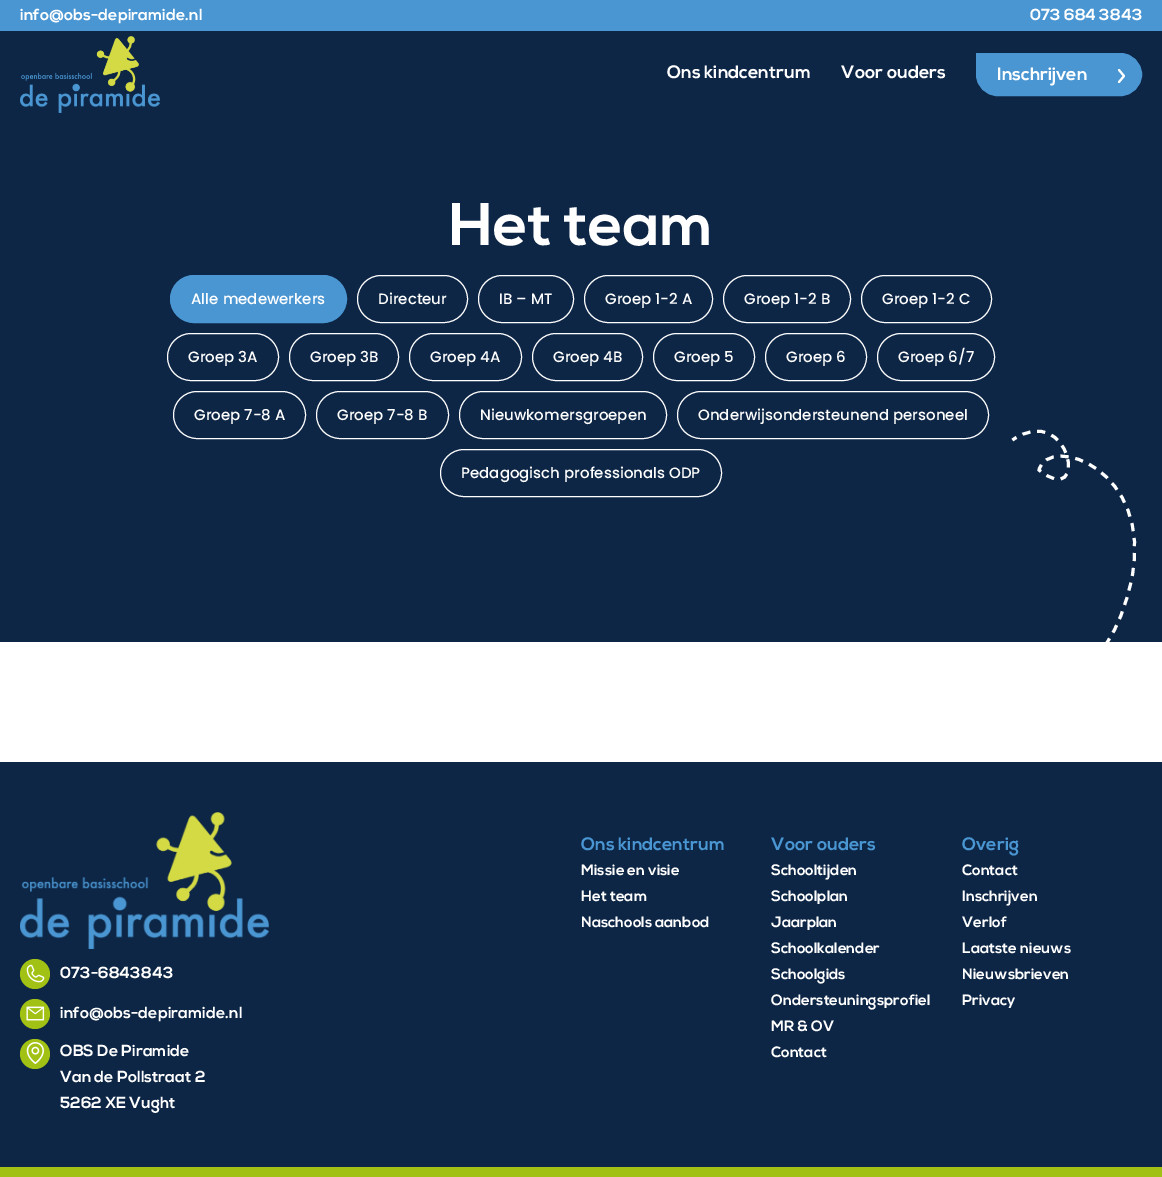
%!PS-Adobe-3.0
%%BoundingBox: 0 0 1162 1177
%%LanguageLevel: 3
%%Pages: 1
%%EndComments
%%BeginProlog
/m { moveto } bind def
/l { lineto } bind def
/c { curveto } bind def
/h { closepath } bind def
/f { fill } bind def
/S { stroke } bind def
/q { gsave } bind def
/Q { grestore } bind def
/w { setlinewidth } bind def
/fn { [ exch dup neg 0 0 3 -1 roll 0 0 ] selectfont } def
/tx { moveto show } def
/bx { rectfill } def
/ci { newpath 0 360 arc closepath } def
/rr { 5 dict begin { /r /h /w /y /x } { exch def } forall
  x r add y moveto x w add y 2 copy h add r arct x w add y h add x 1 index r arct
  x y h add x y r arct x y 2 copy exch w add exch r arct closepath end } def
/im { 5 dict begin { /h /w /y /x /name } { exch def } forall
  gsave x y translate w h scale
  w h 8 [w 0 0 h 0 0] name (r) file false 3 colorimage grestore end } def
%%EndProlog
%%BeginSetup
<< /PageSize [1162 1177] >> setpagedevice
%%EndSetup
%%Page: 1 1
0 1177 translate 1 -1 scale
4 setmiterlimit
1 setgray
0 0 1162 1177 bx
0.29 0.588 0.824 setrgbcolor
0 0 1162 31 bx
/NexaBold-Bold 16 fn
1 setgray
(info@obs-depiramide.nl) 20 20 tx
(073 684 3843) 1030 20 tx
0.051 0.149 0.275 setrgbcolor
0 31 1162 611 bx
(image0.raw) 20 36 140 77 im
/NexaBold-Bold 18 fn
1 setgray
(Ons kindcentrum) 667 78 tx
(Voor ouders) 841 78 tx
0.29 0.588 0.824 setrgbcolor
976.5 53.5 m 1120.5 53.5 l 1132 53.5 1141.5 63 1141.5 74.5 c 1141.5 86 1132 95.5 1120.5 95.5 c 997.5 95.5 l 986 95.5 976.5 86 976.5 74.5 c h q f Q
S
1 setgray
(Inschrijven) 997 80 tx
2 w
1 setlinecap
1119 82 m 1124 76 l 1119 70 m 1124 76 l S
/NexaBold-Bold 60 fn
(Het team) 449 245 tx
0.29 0.588 0.824 setrgbcolor
170.5 275.5 176 47 23.5 rr q f Q
1 w
0 setlinecap
S
/Poppins-Medium 15 fn
1 setgray
(Alle medewerkers) 191 304 tx
357.5 275.5 110 47 23.5 rr S
(Directeur) 378 304 tx
478.5 275.5 95 47 23.5 rr S
(IB – MT) 499 304 tx
584.5 275.5 128 47 23.5 rr S
(Groep 1-2 A) 605 304 tx
723.5 275.5 127 47 23.5 rr S
(Groep 1-2 B) 744 304 tx
861.5 275.5 130 47 23.5 rr S
(Groep 1-2 C) 882 304 tx
167.5 333.5 111 47 23.5 rr S
(Groep 3A) 188 362 tx
289.5 333.5 109 47 23.5 rr S
(Groep 3B) 310 362 tx
409.5 333.5 112 47 23.5 rr S
(Groep 4A) 430 362 tx
532.5 333.5 110 47 23.5 rr S
(Groep 4B) 553 362 tx
653.5 333.5 101 47 23.5 rr S
(Groep 5) 674 362 tx
765.5 333.5 101 47 23.5 rr S
(Groep 6) 786 362 tx
877.5 333.5 117 47 23.5 rr S
(Groep 6/7) 898 362 tx
173.5 391.5 132 47 23.5 rr S
(Groep 7-8 A) 194 420 tx
316.5 391.5 132 47 23.5 rr S
(Groep 7-8 B) 337 420 tx
459.5 391.5 207 47 23.5 rr S
(Nieuwkomersgroepen) 480 420 tx
677.5 391.5 311 47 23.5 rr S
(Onderwijsondersteunend personeel) 698 420 tx
440.5 449.5 281 47 23.5 rr S
(Pedagogisch professionals ODP) 461 478 tx
3 w
[8 7] 0 setdash
1027.5 682 m 1041.5 681 1108 690.5 1131.5 579.5 c 1154.5 468.5 1048.5 433.5 1039 470 c 1090 511.5 1071 399.5 1012.5 440 c S
0.051 0.149 0.275 setrgbcolor
0 762 1162 405 bx
(image1.raw) 20 812 249 137 im
0.631 0.761 0.078 setrgbcolor
35 974 15 ci f
(image2.raw) 26 964 19 19 im
/NexaBold-Bold 16 fn
1 setgray
(073-6843843) 60 978 tx
0.631 0.761 0.078 setrgbcolor
35 1014 15 ci f
(image3.raw) 26 1006 19 15 im
1 setgray
(info@obs-depiramide.nl) 60 1018 tx
0.631 0.761 0.078 setrgbcolor
35 1054 15 ci f
(image4.raw) 26 1042 18 22 im
1 setgray
(OBS De Piramide) 60 1056 tx
(Van de Pollstraat 2) 60 1082 tx
(5262 XE Vught) 60 1108 tx
/NexaBold-Bold 18 fn
0.29 0.588 0.824 setrgbcolor
(Ons kindcentrum) 581 850 tx
/NexaBold-Bold 15 fn
1 setgray
(Missie en visie) 581 875 tx
(Het team) 581 901 tx
(Naschools aanbod) 581 927 tx
/NexaBold-Bold 18 fn
0.29 0.588 0.824 setrgbcolor
(Voor ouders) 771 850 tx
/NexaBold-Bold 15 fn
1 setgray
(Schooltijden) 771 875 tx
(Schoolplan) 771 901 tx
(Jaarplan) 771 927 tx
(Schoolkalender) 771 953 tx
(Schoolgids) 771 979 tx
(Ondersteuningsprofiel) 771 1005 tx
(MR & OV) 771 1031 tx
(Contact) 771 1057 tx
/NexaBold-Bold 18 fn
0.29 0.588 0.824 setrgbcolor
(Overig) 962 850 tx
/NexaBold-Bold 15 fn
1 setgray
(Contact) 962 875 tx
(Inschrijven) 962 901 tx
(Verlof) 962 927 tx
(Laatste nieuws) 962 953 tx
(Nieuwsbrieven) 962 979 tx
(Privacy) 962 1005 tx
0.631 0.761 0.078 setrgbcolor
0 1167 1162 10 bx
showpage
%%EOF
